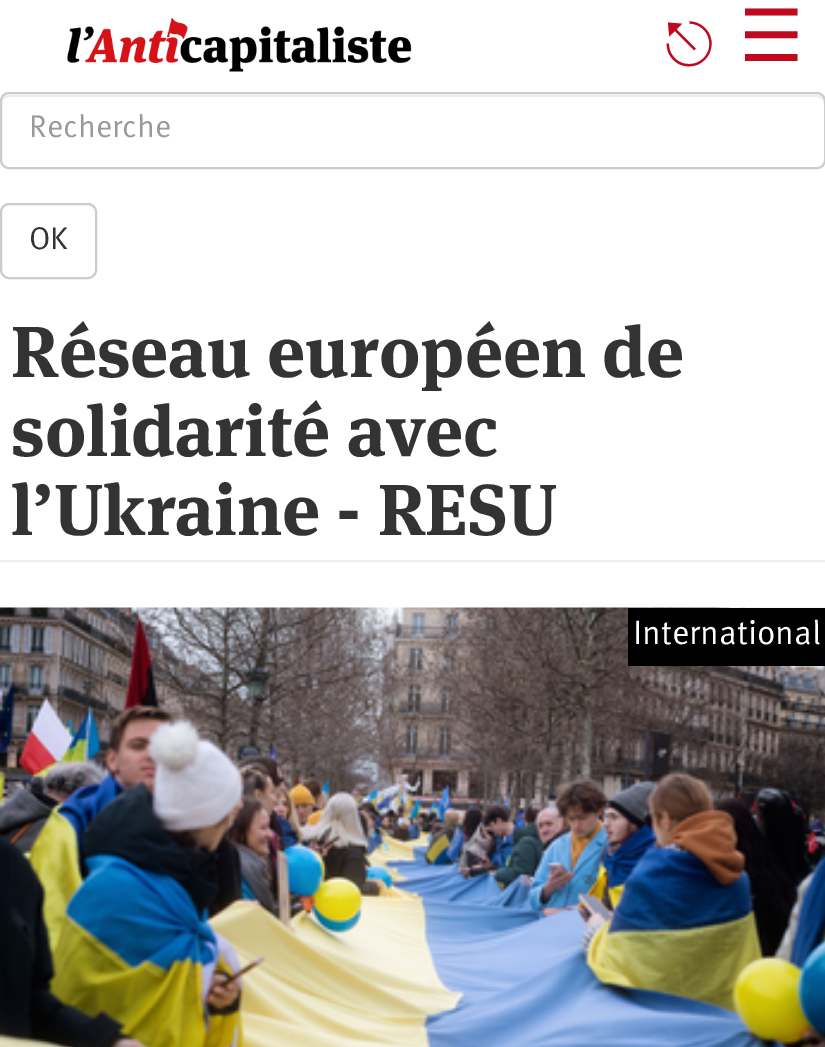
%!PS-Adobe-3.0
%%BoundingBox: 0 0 825 1047
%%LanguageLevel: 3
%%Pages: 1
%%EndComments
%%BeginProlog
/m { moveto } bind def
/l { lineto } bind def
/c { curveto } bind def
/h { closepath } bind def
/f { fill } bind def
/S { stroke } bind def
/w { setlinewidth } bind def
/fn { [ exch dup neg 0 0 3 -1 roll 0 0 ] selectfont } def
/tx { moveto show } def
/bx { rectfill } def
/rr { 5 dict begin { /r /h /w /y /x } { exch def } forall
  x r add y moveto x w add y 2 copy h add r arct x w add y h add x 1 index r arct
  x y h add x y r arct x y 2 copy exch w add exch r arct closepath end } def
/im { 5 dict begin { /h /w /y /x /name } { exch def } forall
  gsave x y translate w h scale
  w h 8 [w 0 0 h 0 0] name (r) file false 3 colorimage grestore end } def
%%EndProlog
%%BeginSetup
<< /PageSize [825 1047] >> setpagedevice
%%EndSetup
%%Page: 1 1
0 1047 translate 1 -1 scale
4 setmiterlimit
1 setgray
0 0 825 1047 bx
(image0.raw) 67 18 345 54 im
/FreeSerif-Regular 61 fn
0.753 0.031 0.122 setrgbcolor
(⎋) 665 65 tx
/DejaVuSans-Regular 72 fn
(☰) 739 61 tx
0.925 setgray
9 97 m 817 97 l 820 97 824 100 824 104 c 824 102 l 824 98 821 95 817 95 c 9 95 l 5 95 2 98 2 102 c 2 104 l 2 100 5 97 9 97 c h f
0.8 setgray
2 w
1 93 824 75 8 rr S
/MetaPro-Regular 31.5 fn
0.6 setgray
(Recherche) 29 137 tx
0.8 setgray
1 204 95 74 8 rr S
0.2 setgray
(OK) 29 249 tx
0.933 setgray
0 560 825 2 bx
/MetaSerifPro-Bold 72 fn
0.2 setgray
(Réseau européen de) 11 377 tx
(solidarité avec) 11 456 tx
(l’Ukraine - RESU) 11 535 tx
(image1.raw) 0 607 825 440 im
0 setgray
628 608 197 58 bx
/MetaPro-Regular 33.75 fn
1 setgray
(International) 633 644 tx
showpage
%%EOF
